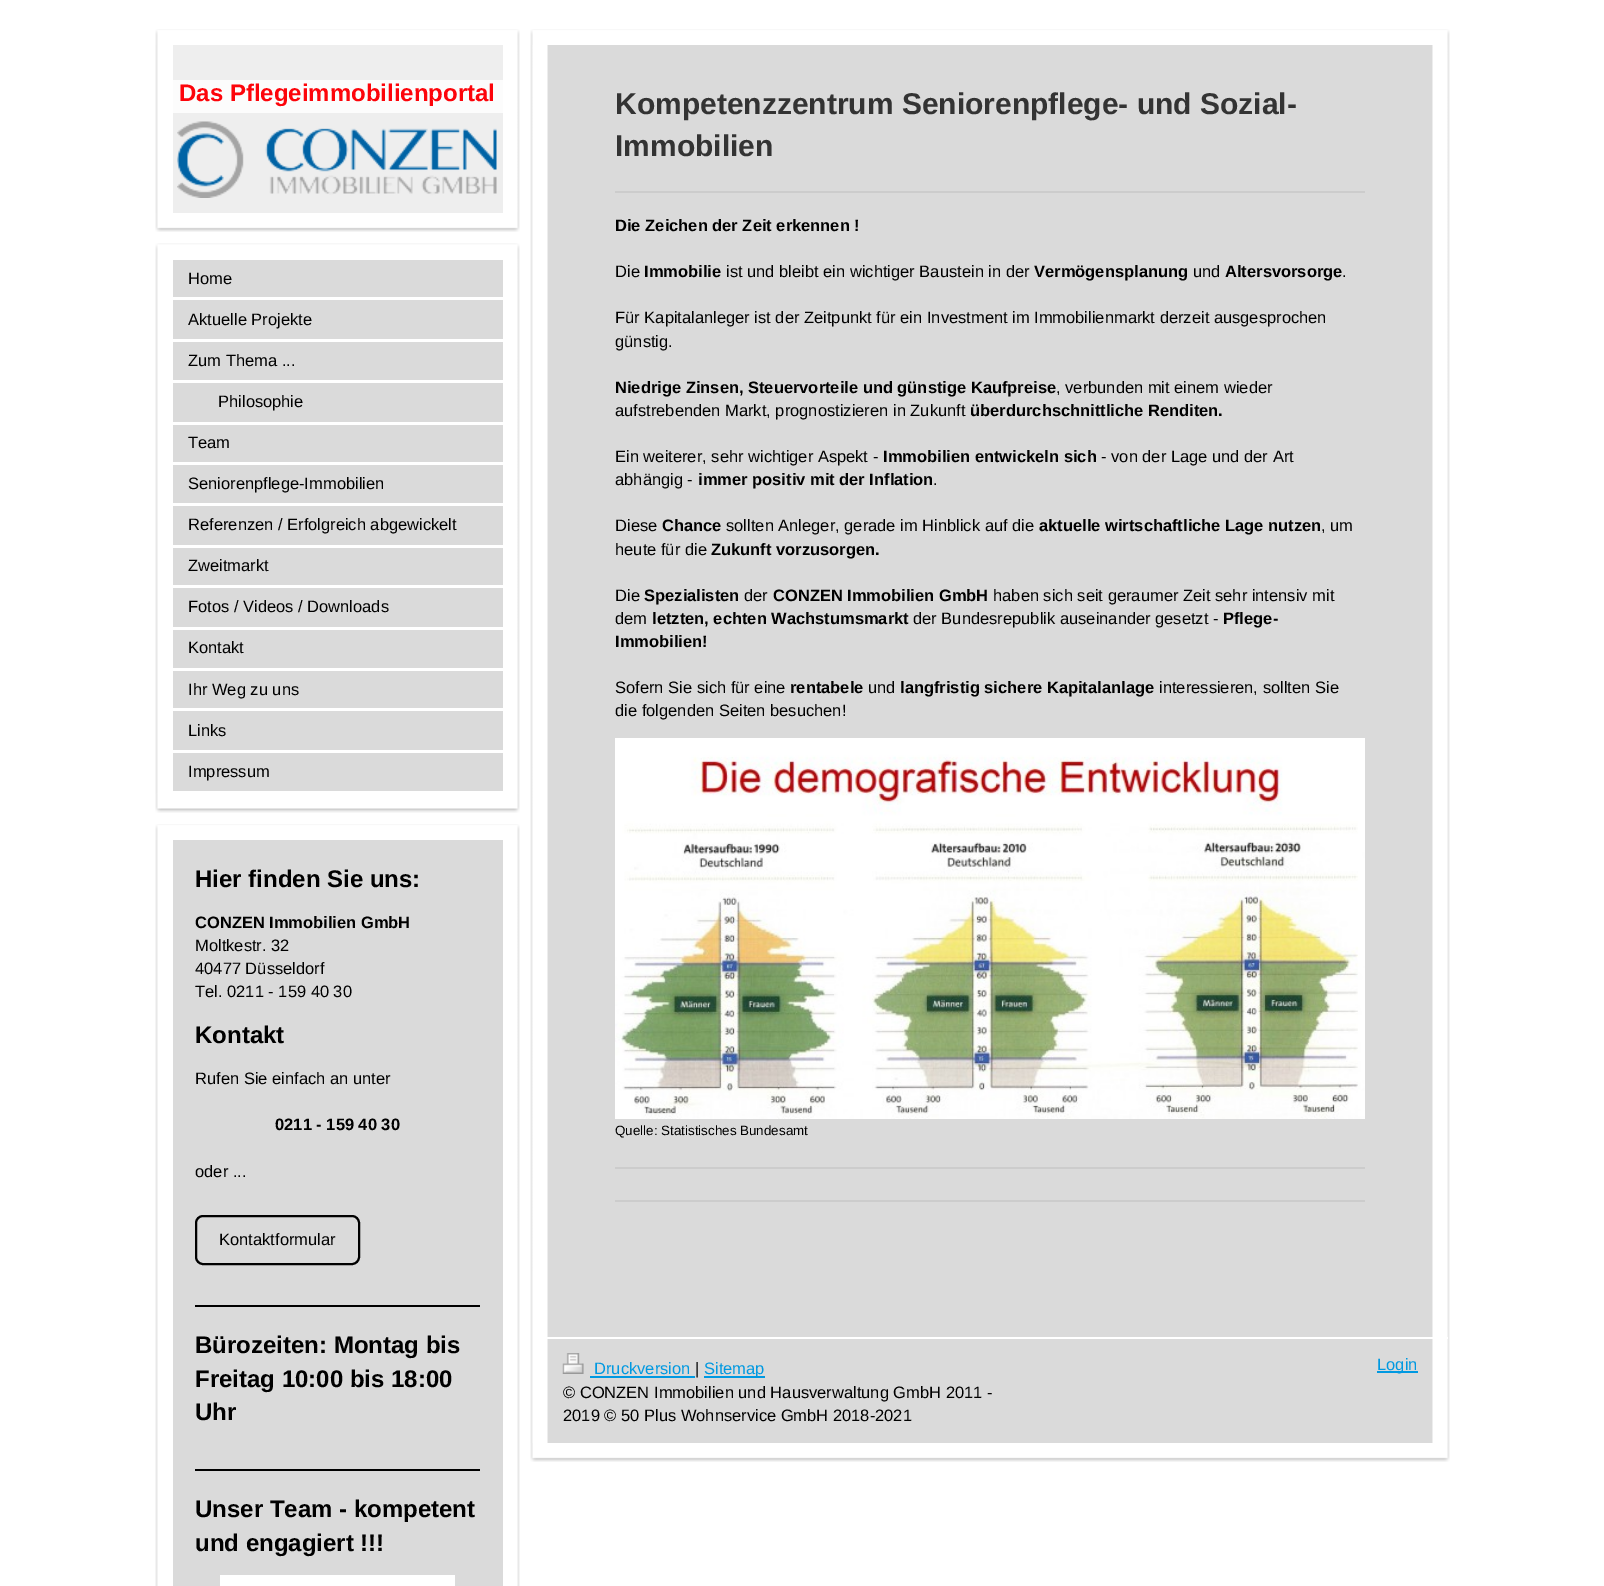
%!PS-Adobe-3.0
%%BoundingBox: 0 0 1604 1586
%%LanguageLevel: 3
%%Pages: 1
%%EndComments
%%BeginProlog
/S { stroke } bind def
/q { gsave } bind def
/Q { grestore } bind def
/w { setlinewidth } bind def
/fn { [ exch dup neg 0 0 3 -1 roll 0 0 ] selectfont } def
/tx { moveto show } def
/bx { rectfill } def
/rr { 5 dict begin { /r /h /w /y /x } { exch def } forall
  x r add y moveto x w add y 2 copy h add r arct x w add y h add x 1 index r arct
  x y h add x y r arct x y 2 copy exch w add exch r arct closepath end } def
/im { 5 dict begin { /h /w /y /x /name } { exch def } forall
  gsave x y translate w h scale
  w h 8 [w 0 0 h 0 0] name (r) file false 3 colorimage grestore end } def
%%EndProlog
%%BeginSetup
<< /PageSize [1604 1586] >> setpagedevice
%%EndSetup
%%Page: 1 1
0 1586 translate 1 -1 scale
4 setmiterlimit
1 setgray
0 0 1604 1586 bx
(image0.raw) 155 29 365 16 im
(image1.raw) 155 213 365 19 im
(image2.raw) 155 45 365 168 im
0.933 setgray
173 45 330 168 bx
0.988 setgray
173 80 330 33 bx
/LiberationSans-Bold 24 fn
0.992 0.016 0.039 setrgbcolor
(Das Pflegeimmobilienportal) 179 101 tx
(image3.raw) 177 121 320 77 im
(image4.raw) 155 243 365 17 im
(image5.raw) 155 793 365 20 im
(image6.raw) 155 259 365 535 im
0.855 setgray
173 260 330 531 bx
1 setgray
173 297 330 3 bx
/LiberationSans-Regular 16.5 fn
0 setgray
(Home) 188 284 tx
1 setgray
173 339 330 3 bx
0 setgray
(Aktuelle Projekte) 188 325 tx
1 setgray
173 380 330 3 bx
0 setgray
(Zum Thema ...) 188 366 tx
1 setgray
173 422 330 3 bx
0 setgray
(Philosophie) 218 407 tx
1 setgray
173 462 330 3 bx
0 setgray
(Team) 188 448 tx
1 setgray
173 503 330 3 bx
0 setgray
(Seniorenpflege-Immobilien) 188 489 tx
1 setgray
173 545 330 3 bx
0 setgray
(Referenzen / Erfolgreich abgewickelt) 188 530 tx
1 setgray
173 585 330 3 bx
0 setgray
(Zweitmarkt) 188 571 tx
1 setgray
173 627 330 3 bx
0 setgray
(Fotos / Videos / Downloads) 188 612 tx
1 setgray
173 668 330 3 bx
0 setgray
(Kontakt) 188 653 tx
1 setgray
173 708 330 3 bx
0 setgray
(Ihr Weg zu uns) 188 695 tx
1 setgray
173 750 330 3 bx
0 setgray
(Links) 188 736 tx
(Impressum) 188 777 tx
(image0.raw) 155 824 365 16 im
(image7.raw) 155 840 365 746 im
0.855 setgray
173 840 330 746 bx
/LiberationSans-Bold 24 fn
0 setgray
(Hier finden Sie uns:) 195 887 tx
/LiberationSans-Bold 16.5 fn
(CONZEN Immobilien GmbH) 195 928 tx
/LiberationSans-Regular 16.5 fn
(Moltkestr. 32) 195 951 tx
(40477 Düsseldorf) 195 974 tx
(Tel. 0211 - 159 40 30) 195 997 tx
/LiberationSans-Bold 24 fn
(Kontakt) 195 1043 tx
/LiberationSans-Regular 16.5 fn
(Rufen Sie einfach an unter) 195 1084 tx
/LiberationSans-Bold 16.5 fn
(0211 - 159 40 30) 275 1130 tx
/LiberationSans-Regular 16.5 fn
(oder ...) 195 1177 tx
2 w
196 1216 163 48 7 rr S
(Kontaktformular) 219 1245 tx
195 1305 285 2 bx
/LiberationSans-Bold 24 fn
(Bürozeiten: Montag bis) 195 1353 tx
(Freitag 10:00 bis 18:00) 195 1387 tx
(Uhr) 195 1420 tx
195 1469 285 2 bx
(Unser Team - kompetent) 195 1517 tx
(und engagiert !!!) 195 1551 tx
1 setgray
220 1575 235 11 bx
(image8.raw) 530 29 920 16 im
(image9.raw) 530 1443 920 19 im
(image10.raw) 530 45 920 1398 im
/LiberationSans-Bold 30 fn
0.2 setgray
(Kompetenzzentrum Seniorenpflege- und Sozial-) 615 114 tx
(Immobilien) 615 156 tx
0.8 setgray
615 191 750 2 bx
/LiberationSans-Bold 16.5 fn
0 setgray
(Die Zeichen der Zeit erkennen !) 615 231 tx
/LiberationSans-Regular 16.5 fn
(Die) 615 277 tx
/LiberationSans-Bold 16.5 fn
(Immobilie) 644 277 tx
/LiberationSans-Regular 16.5 fn
(ist und bleibt ein wichtiger Baustein in der) 726 277 tx
/LiberationSans-Bold 16.5 fn
(Vermögensplanung) 1034 277 tx
/LiberationSans-Regular 16.5 fn
(und) 1193 277 tx
/LiberationSans-Bold 16.5 fn
(Altersvorsorge) 1225 277 tx
/LiberationSans-Regular 16.5 fn
(.) 1342 277 tx
(Für Kapitalanleger ist der Zeitpunkt für ein Investment im Immobilienmarkt derzeit ausgesprochen) 615 323 tx
(günstig.) 615 347 tx
/LiberationSans-Bold 16.5 fn
(Niedrige Zinsen, Steuervorteile und günstige Kaufpreise) 615 393 tx
/LiberationSans-Regular 16.5 fn
(, verbunden mit einem wieder) 1056 393 tx
(aufstrebenden Markt, prognostizieren in Zukunft) 615 416 tx
/LiberationSans-Bold 16.5 fn
(überdurchschnittliche Renditen.) 970 416 tx
/LiberationSans-Regular 16.5 fn
(Ein weiterer, sehr wichtiger Aspekt -) 615 462 tx
/LiberationSans-Bold 16.5 fn
(Immobilien entwickeln sich) 883 462 tx
/LiberationSans-Regular 16.5 fn
(- von der Lage und der Art) 1101 462 tx
(abhängig -) 615 485 tx
/LiberationSans-Bold 16.5 fn
(immer positiv mit der Inflation) 698 485 tx
/LiberationSans-Regular 16.5 fn
(.) 933 485 tx
(Diese) 615 531 tx
/LiberationSans-Bold 16.5 fn
(Chance) 662 531 tx
/LiberationSans-Regular 16.5 fn
(sollten Anleger, gerade im Hinblick auf die) 726 531 tx
/LiberationSans-Bold 16.5 fn
(aktuelle wirtschaftliche Lage nutzen) 1039 531 tx
/LiberationSans-Regular 16.5 fn
(, um) 1321 531 tx
(heute für die) 615 555 tx
/LiberationSans-Bold 16.5 fn
(Zukunft vorzusorgen.) 711 555 tx
/LiberationSans-Regular 16.5 fn
(Die) 615 601 tx
/LiberationSans-Bold 16.5 fn
(Spezialisten) 644 601 tx
/LiberationSans-Regular 16.5 fn
(der) 744 601 tx
/LiberationSans-Bold 16.5 fn
(CONZEN Immobilien GmbH) 773 601 tx
/LiberationSans-Regular 16.5 fn
(haben sich seit geraumer Zeit sehr intensiv mit) 993 601 tx
(dem) 615 624 tx
/LiberationSans-Bold 16.5 fn
(letzten, echten Wachstumsmarkt) 652 624 tx
/LiberationSans-Regular 16.5 fn
(der Bundesrepublik auseinander gesetzt -) 913 624 tx
/LiberationSans-Bold 16.5 fn
(Pflege-) 1223 624 tx
(Immobilien!) 615 647 tx
/LiberationSans-Regular 16.5 fn
(Sofern Sie sich für eine) 615 693 tx
/LiberationSans-Bold 16.5 fn
(rentabele) 790 693 tx
/LiberationSans-Regular 16.5 fn
(und) 868 693 tx
/LiberationSans-Bold 16.5 fn
(langfristig sichere Kapitalanlage) 900 693 tx
/LiberationSans-Regular 16.5 fn
(interessieren, sollten Sie) 1159 693 tx
(die folgenden Seiten besuchen!) 615 716 tx
(image11.raw) 615 738 750 381 im
/LiberationSans-Regular 13.4 fn
(Quelle: Statistisches Bundesamt) 615 1135 tx
0.8 setgray
615 1167 750 2 bx
615 1200 750 2 bx
1 setgray
547 1337 901 2 bx
(image12.raw) 562 1353 22 21 im
/LiberationSans-Regular 16.5 fn
0 0.6 0.882 setrgbcolor
(Druckversion) 594 1374 tx
590 1376 105 2 bx
0 setgray
(|) 695 1374 tx
0 0.6 0.882 setrgbcolor
704 1376 61 2 bx
(Sitemap) 704 1374 tx
q
563 1353 855 75 rectclip
0 setgray
(© CONZEN Immobilien und Hausverwaltung GmbH 2011 -) 563 1398 tx
Q
0 setgray
(2019 © 50 Plus Wohnservice GmbH 2018-2021) 563 1421 tx
0 0.6 0.882 setrgbcolor
1377 1371 41 2 bx
(Login) 1377 1370 tx
showpage
%%EOF
